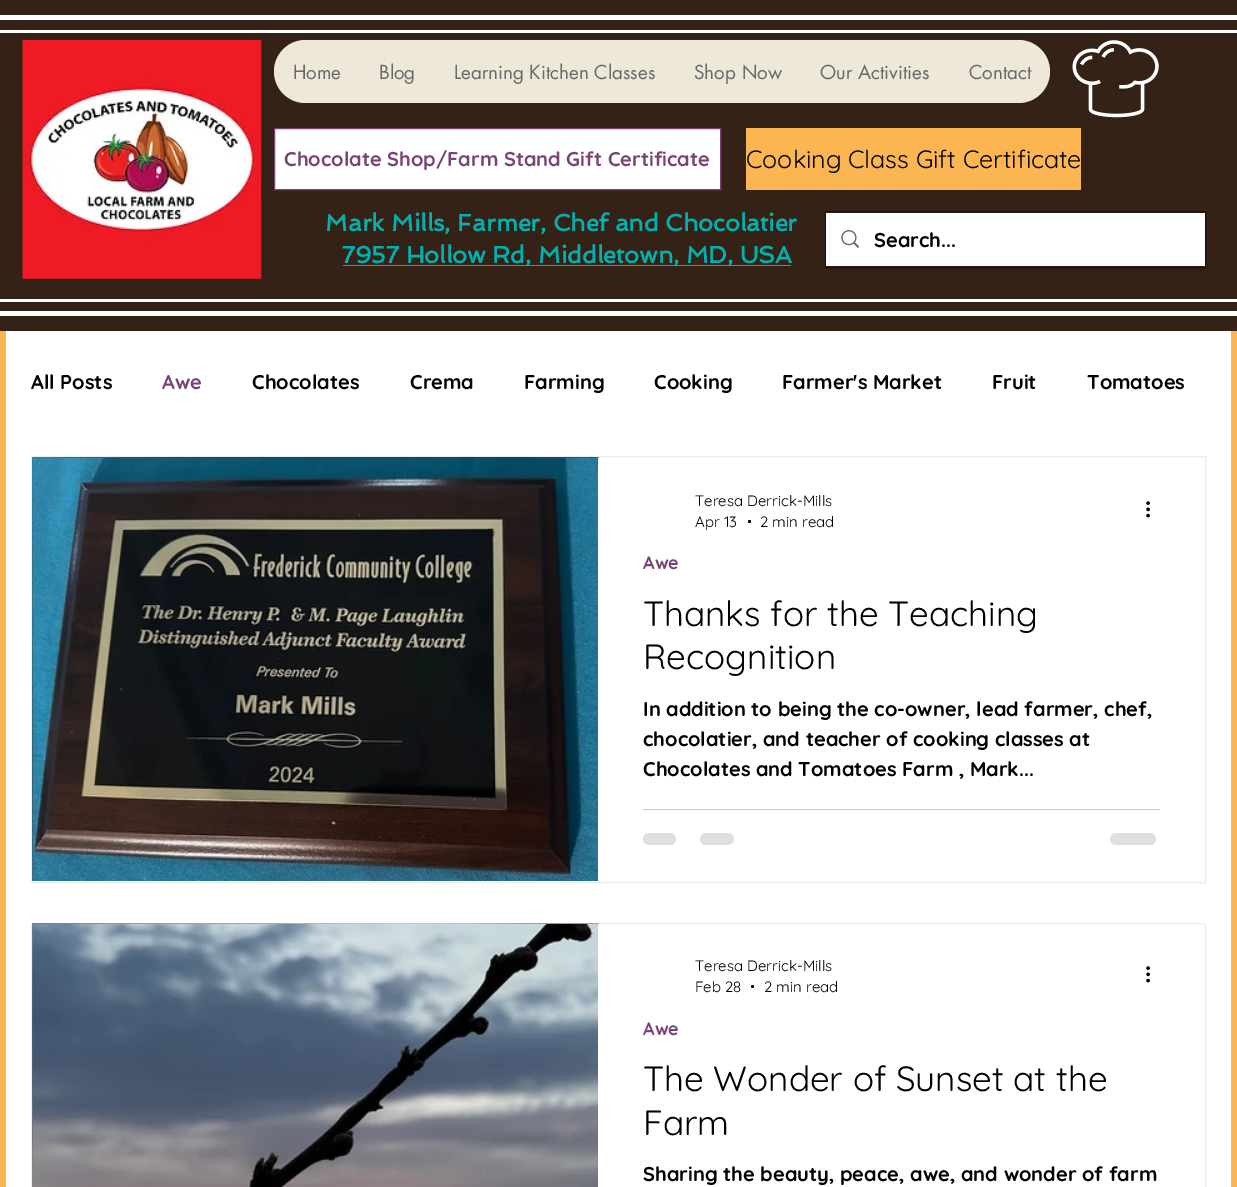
%!PS-Adobe-3.0
%%BoundingBox: 0 0 1237 1187
%%LanguageLevel: 3
%%Pages: 1
%%EndComments
%%BeginProlog
/m { moveto } bind def
/l { lineto } bind def
/h { closepath } bind def
/f { fill } bind def
/S { stroke } bind def
/q { gsave } bind def
/Q { grestore } bind def
/fn { [ exch dup neg 0 0 3 -1 roll 0 0 ] selectfont } def
/tx { moveto show } def
/bx { rectfill } def
/ci { newpath 0 360 arc closepath } def
/rr { 5 dict begin { /r /h /w /y /x } { exch def } forall
  x r add y moveto x w add y 2 copy h add r arct x w add y h add x 1 index r arct
  x y h add x y r arct x y 2 copy exch w add exch r arct closepath end } def
/im { 5 dict begin { /h /w /y /x /name } { exch def } forall
  gsave x y translate w h scale
  w h 8 [w 0 0 h 0 0] name (r) file false 3 colorimage grestore end } def
%%EndProlog
%%BeginSetup
<< /PageSize [1237 1187] >> setpagedevice
%%EndSetup
%%Page: 1 1
0 1187 translate 1 -1 scale
4 setmiterlimit
0.984 0.714 0.318 setrgbcolor
0 0 1237 1187 bx
0.204 0.133 0.086 setrgbcolor
0 0 1237 331 bx
1 setgray
0 15 1237 5 bx
0 311 1237 5 bx
0 30 1237 3 bx
0 299 1237 3 bx
(image0.raw) 22 40 240 239 im
0.933 0.91 0.847 setrgbcolor
274 40 776 63 31.5 rr f
/futura-Regular 18.75 fn
0.412 setgray
(Home) 293 79 tx
(Blog) 379 79 tx
(Learning Kitchen Classes) 454 79 tx
(Shop Now) 694 79 tx
(Our Activities) 820 79 tx
(Contact) 969 79 tx
(image1.raw) 1072 40 87 78 im
1 setgray
274.5 128.5 m 720.5 128.5 l 720.5 189.5 l 274.5 189.5 l h q f Q
0.475 0.271 0.467 setrgbcolor
S
/Quicksand-Bold 20 fn
(Chocolate Shop/Farm Stand Gift Certificate) 284 166 tx
0.984 0.714 0.318 setrgbcolor
746 128 335 62 bx
/Quicksand-Regular 25 fn
0 setgray
(Cooking Class Gift Certificate) 746 168 tx
/Spinnaker-Bold 23.75 fn
0.004 0.694 0.686 setrgbcolor
(Mark Mills, Farmer, Chef and Chocolatier) 325 231 tx
343 265 448 1 bx
(7957 Hollow Rd, Middletown, MD, USA) 342 263 tx
0.082 0.055 0.035 setrgbcolor
825.5 211.5 380 56 rectstroke
1 setgray
826 213 379 53 bx
(image2.raw) 841 230 18 18 im
/Quicksand-Bold 20 fn
0 setgray
(Search...) 874 247 tx
1 setgray
6 331 1225 856 bx
0 setgray
(All Posts) 31 389 tx
0.475 0.271 0.467 setrgbcolor
(Awe) 162 389 tx
0 setgray
(Chocolates) 252 389 tx
(Crema) 410 389 tx
(Farming) 524 389 tx
(Cooking) 654 389 tx
(Farmer's Market) 782 389 tx
(Fruit) 992 389 tx
(Tomatoes) 1087 389 tx
0.933 0.925 0.925 setrgbcolor
31.5 456.5 1174 426 rectstroke
(image3.raw) 32 457 567 424 im
(image4.raw) 33 458 565 423 im
1 setgray
598 458 1 423 bx
/Quicksand-Regular 15 fn
0 setgray
(Teresa Derrick-Mills) 695 506 tx
(Apr 13) 695 527 tx
749.5 521.5 1.5 ci f
(2 min read) 760 527 tx
(image5.raw) 1146 501 4 17 im
/Quicksand-Bold 18 fn
0.475 0.271 0.467 setrgbcolor
(Awe) 643 569 tx
/Quicksand-Regular 35 fn
0 setgray
(Thanks for the Teaching) 643 626 tx
(Recognition) 643 669 tx
/Quicksand-Bold 20 fn
(In addition to being the co-owner, lead farmer, chef,) 643 716 tx
(chocolatier, and teacher of cooking classes at) 643 746 tx
(Chocolates and Tomatoes Farm , Mark...) 643 776 tx
0.8 setgray
643 809 517 1 bx
0.878 setgray
643 833 33 12 6 rr f
700 833 34 12 6 rr f
1110 833 46 12 6 rr f
0.933 0.925 0.925 setrgbcolor
31.5 923.5 1174 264 rectstroke
(image6.raw) 32 923 567 264 im
(image7.raw) 33 924 565 263 im
1 setgray
598 924 1 263 bx
/Quicksand-Regular 15 fn
0 setgray
(Teresa Derrick-Mills) 695 971 tx
(Feb 28) 695 992 tx
752.5 986.5 1.5 ci f
(2 min read) 764 992 tx
(image5.raw) 1146 966 4 17 im
/Quicksand-Bold 18 fn
0.475 0.271 0.467 setrgbcolor
(Awe) 643 1035 tx
/Quicksand-Regular 35 fn
0 setgray
(The Wonder of Sunset at the) 643 1091 tx
(Farm) 643 1135 tx
/Quicksand-Bold 20 fn
(Sharing the beauty, peace, awe, and wonder of farm) 643 1181 tx
showpage
%%EOF
